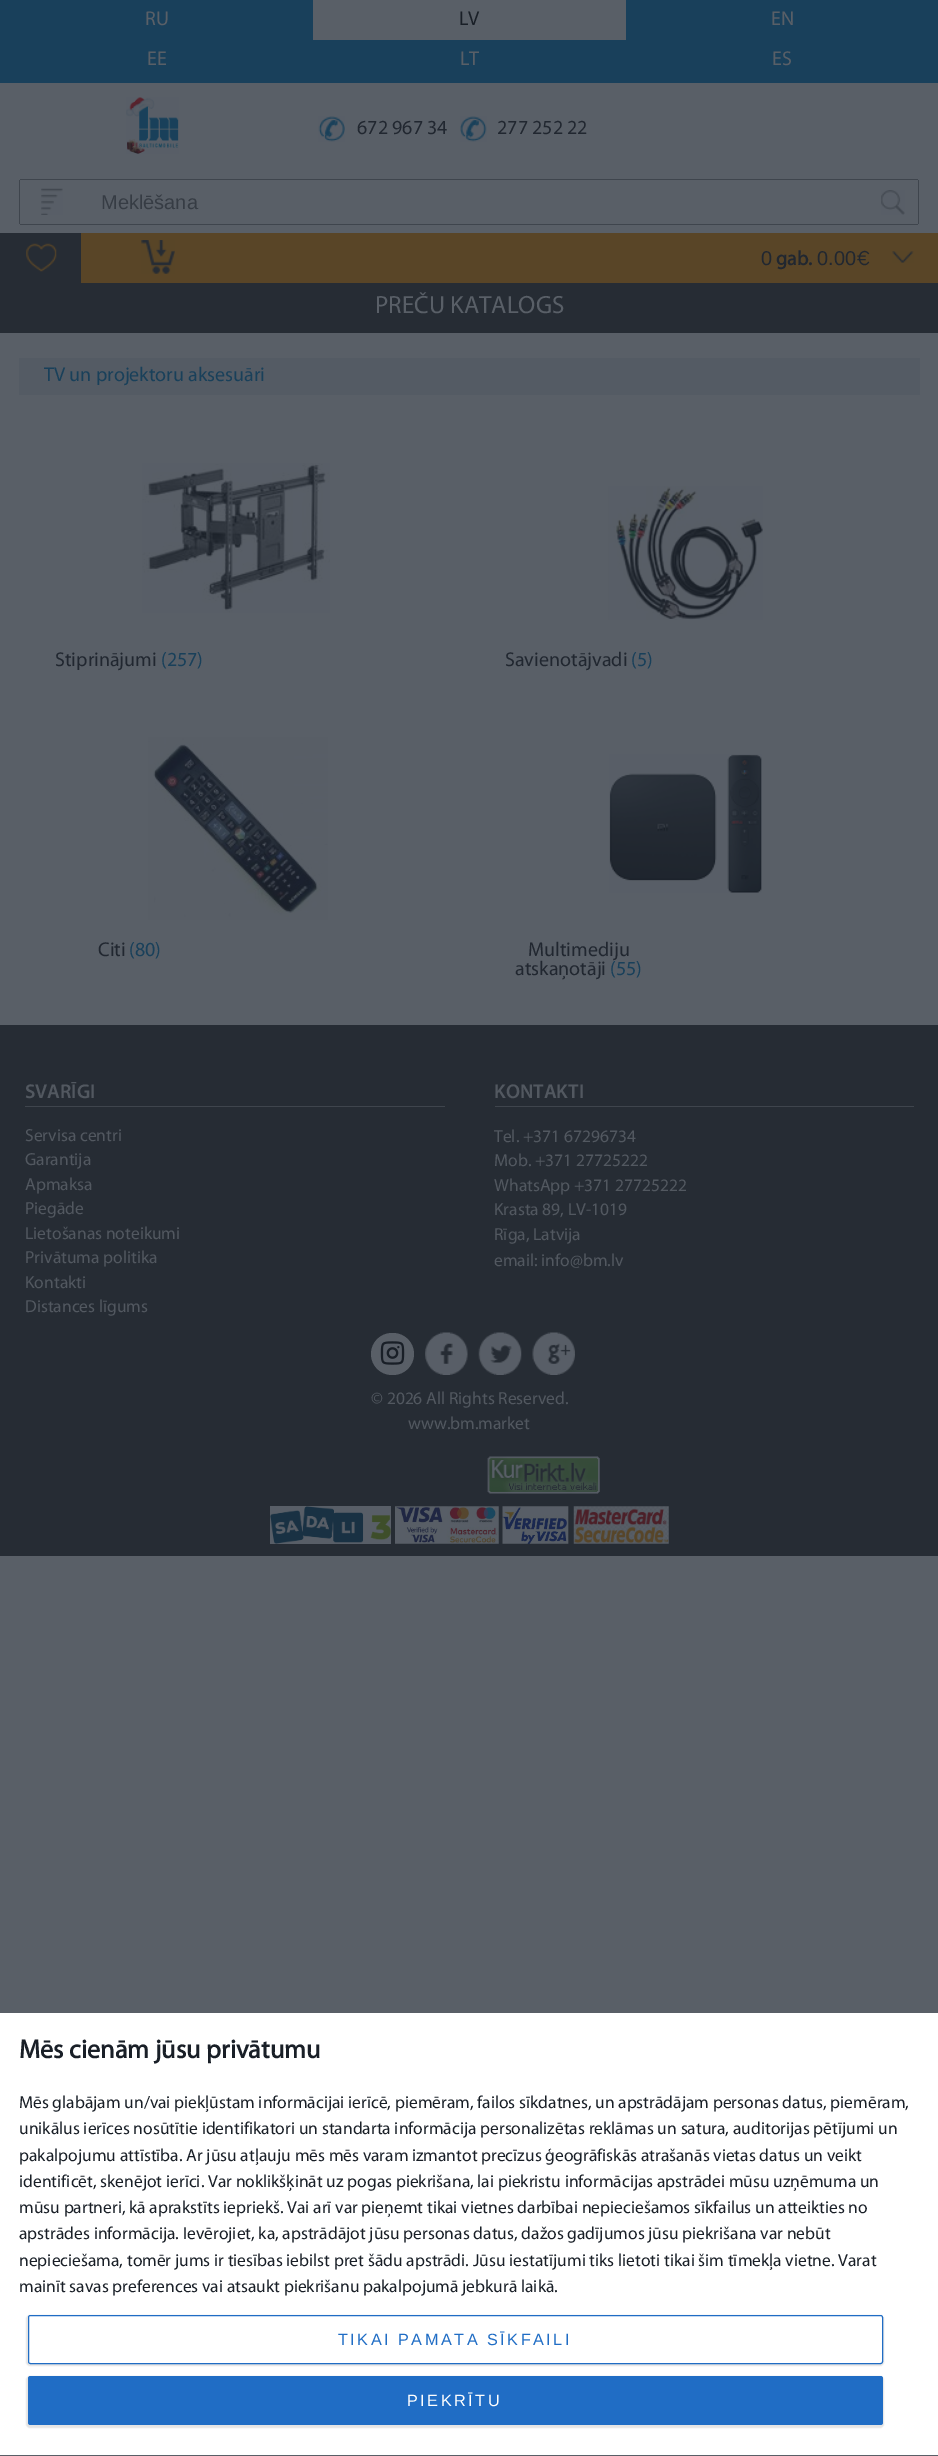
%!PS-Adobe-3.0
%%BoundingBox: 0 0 938 2456
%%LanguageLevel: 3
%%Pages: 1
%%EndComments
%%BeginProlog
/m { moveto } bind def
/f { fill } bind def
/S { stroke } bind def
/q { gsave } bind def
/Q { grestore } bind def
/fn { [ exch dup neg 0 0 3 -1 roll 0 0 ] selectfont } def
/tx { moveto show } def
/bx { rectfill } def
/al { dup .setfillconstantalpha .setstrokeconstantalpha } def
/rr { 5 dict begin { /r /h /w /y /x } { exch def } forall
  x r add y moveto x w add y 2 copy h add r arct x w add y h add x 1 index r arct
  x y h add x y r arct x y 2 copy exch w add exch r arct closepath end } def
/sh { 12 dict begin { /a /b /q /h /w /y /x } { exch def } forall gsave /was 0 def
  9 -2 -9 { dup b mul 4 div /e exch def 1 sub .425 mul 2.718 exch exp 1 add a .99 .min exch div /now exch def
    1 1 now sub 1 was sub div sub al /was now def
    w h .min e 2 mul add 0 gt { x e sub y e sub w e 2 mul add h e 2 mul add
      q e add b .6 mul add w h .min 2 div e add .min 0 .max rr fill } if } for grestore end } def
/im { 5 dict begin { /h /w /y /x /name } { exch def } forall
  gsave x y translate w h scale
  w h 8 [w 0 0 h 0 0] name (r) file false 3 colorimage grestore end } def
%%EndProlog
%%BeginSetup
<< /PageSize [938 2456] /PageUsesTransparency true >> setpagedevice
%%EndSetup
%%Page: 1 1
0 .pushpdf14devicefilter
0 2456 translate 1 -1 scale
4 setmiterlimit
0.349 0.373 0.404 setrgbcolor
0 0 938 2456 bx
0.098 0.251 0.357 setrgbcolor
0 80 938 3 bx
0 0 313 80 bx
/Myriad-Regular 20 fn
0.349 0.373 0.404 setrgbcolor
(RU) 145 25 tx
0.098 0.122 0.153 setrgbcolor
(LV) 459 25 tx
0.098 0.251 0.357 setrgbcolor
626 0 312 40 bx
0.349 0.373 0.404 setrgbcolor
(EN) 771 25 tx
(EE) 147 65 tx
0.098 0.251 0.357 setrgbcolor
313 40 625 40 bx
0.349 0.373 0.404 setrgbcolor
(LT) 460 65 tx
(ES) 772 65 tx
(image0.raw) 126 97 53 57 im
(image1.raw) 318 116 27 26 im
0.129 0.153 0.188 setrgbcolor
(672 967 34) 357 134 tx
(image2.raw) 460 116 27 26 im
(277 252 22) 497 134 tx
(image3.raw) 41 188 22 27 im
0.247 0.271 0.302 setrgbcolor
20 179 898 1 bx
20 224 898 1 bx
19 180 1 44 bx
/LiberationSans-Regular 20 fn
0.212 0.235 0.267 setrgbcolor
(Meklēšana) 101 209 tx
(image4.raw) 881 190 24 25 im
0.247 0.271 0.302 setrgbcolor
918 180 1 44 bx
0.349 0.271 0.153 setrgbcolor
81 233 857 50 bx
0.149 0.173 0.204 setrgbcolor
0 233 81 50 bx
(image5.raw) 26 243 31 29 im
(image6.raw) 141 240 34 34 im
(image7.raw) 892 251 22 12 im
0.129 0.153 0.188 setrgbcolor
(0) 761 265 tx
/Myriad-Bold 20 fn
(gab.) 776 265 tx
/LiberationSans-Regular 20 fn
(0.00) 817 265 tx
/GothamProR-Regular 20 fn
(€) 856 265 tx
0.149 0.173 0.204 setrgbcolor
0 283 938 50 bx
/Myriad-Regular 25 fn
0.349 0.373 0.404 setrgbcolor
(PREČU KATALOGS) 375 313 tx
0.329 0.357 0.392 setrgbcolor
19 358 901 37 bx
/Myriad-Regular 20 fn
0.098 0.251 0.353 setrgbcolor
(TV un projektoru aksesuāri) 44 381 tx
(image8.raw) 142 463 188 150 im
0.129 0.153 0.188 setrgbcolor
(Stiprinājumi) 55 666 tx
0.098 0.251 0.353 setrgbcolor
(\(257\)) 161 666 tx
(image9.raw) 608 486 155 134 im
0.129 0.153 0.188 setrgbcolor
(Savienotājvadi) 505 666 tx
0.098 0.251 0.353 setrgbcolor
(\(5\)) 631 666 tx
(image10.raw) 148 737 180 183 im
0.129 0.153 0.188 setrgbcolor
(Citi) 98 956 tx
0.098 0.251 0.353 setrgbcolor
(\(80\)) 129 956 tx
(image11.raw) 609 754 153 139 im
0.129 0.153 0.188 setrgbcolor
(Multimediju) 528 956 tx
(atskaņotāji) 515 975 tx
0.098 0.251 0.353 setrgbcolor
(\(55\)) 610 975 tx
0.149 0.173 0.204 setrgbcolor
0 1025 938 531 bx
0.247 0.271 0.302 setrgbcolor
25 1106 420 1 bx
/Myriad-SemiBold 20 fn
0.322 0.345 0.376 setrgbcolor
(SVARĪGI) 25 1098 tx
/Myriad-Regular 17.5 fn
(Servisa centri) 25 1141 tx
(Garantija) 25 1165 tx
(Apmaksa) 25 1190 tx
(Piegāde) 25 1214 tx
(Lietošanas noteikumi) 25 1239 tx
(Privātuma politika) 25 1263 tx
(Kontakti) 25 1288 tx
(Distances līgums) 25 1312 tx
0.247 0.271 0.302 setrgbcolor
495 1106 419 1 bx
/Myriad-SemiBold 20 fn
0.322 0.345 0.376 setrgbcolor
(KONTAKTI) 494 1098 tx
/Myriad-Regular 17.5 fn
(Tel. +371 67296734) 494 1142 tx
(Mob. +371 27725222) 494 1166 tx
(WhatsApp +371 27725222) 494 1191 tx
(Krasta 89, LV-1019) 494 1215 tx
(Rīga, Latvija) 494 1240 tx
(email: info@bm.lv) 494 1266 tx
0.349 0.373 0.404 setrgbcolor
371 1333 43 42 21 rr f
(image12.raw) 380 1341 25 24 im
(image13.raw) 425 1332 43 43 im
(image14.raw) 478 1332 44 43 im
(image15.raw) 532 1332 43 43 im
0.322 0.345 0.376 setrgbcolor
(© 2026 All Rights Reserved.) 371 1404 tx
(www.bm.market) 408 1429 tx
(image16.raw) 487 1456 113 38 im
0.349 0.373 0.404 setrgbcolor
270 1506 121 38 bx
(image17.raw) 270 1506 122 38 im
(image18.raw) 395 1506 104 38 im
(image19.raw) 502 1506 67 38 im
(image20.raw) 573 1506 96 38 im
1 setgray
0 2013 938 442 bx
/Myriad-Bold 26.25 fn
0.098 0.122 0.153 setrgbcolor
(Mēs cienām jūsu privātumu) 19 2058 tx
/Myriad-Regular 17.5 fn
(Mēs glabājam un/vai piekļūstam informācijai ierīcē, piemēram, failos sīkdatnes, un apstrādājam personas datus, piemēram,) 19 2108 tx
(unikālus ierīces nosūtītie identifikatori un standarta informācija personalizētas reklāmas un satura, auditorijas pētījumi un) 19 2134 tx
(pakalpojumu attīstība. Ar jūsu atļauju mēs mēs varam izmantot precīzus ģeogrāfiskās atrašanās vietas datus un veikt) 19 2161 tx
(identificēt, skenējot ierīci. Var noklikšķināt uz pogas piekrišana, lai piekristu informācijas apstrādei mūsu uzņēmuma un) 19 2187 tx
(mūsu partneri, kā aprakstīts iepriekš. Vai arī var pieņemt tikai vietnes darbībai nepieciešamos sīkfailus un atteikties no) 19 2213 tx
(apstrādes informācija. Ievērojiet, ka, apstrādājot jūsu personas datus, dažos gadījumos jūsu piekrišana var nebūt) 19 2239 tx
(nepieciešama, tomēr jums ir tiesības iebilst pret šādu apstrādi. Jūsu iestatījumi tiks lietoti tikai šim tīmekļa vietne. Varat) 19 2266 tx
(mainīt savas preferences vai atsaukt piekrišanu pakalpojumā jebkurā laikā.) 19 2292 tx
0 setgray
26 2315 858 51 4 0.5 0.1 sh
1 setgray
28.5 2315.5 854 48 2 rr q f Q
0.125 0.427 0.773 setrgbcolor
S
/LiberationSans-Regular 16.25 fn
338 2345 m 2.5 0 (TIKAI PAMATA SĪKFAILI) ashow
0 setgray
26 2376 858 52 4 0.5 0.1 sh
0.125 0.427 0.773 setrgbcolor
28 2376 855 49 2.5 rr f
1 setgray
407 2406 m 2.5 0 (PIEKRĪTU) ashow
.poppdf14devicefilter showpage
%%EOF
